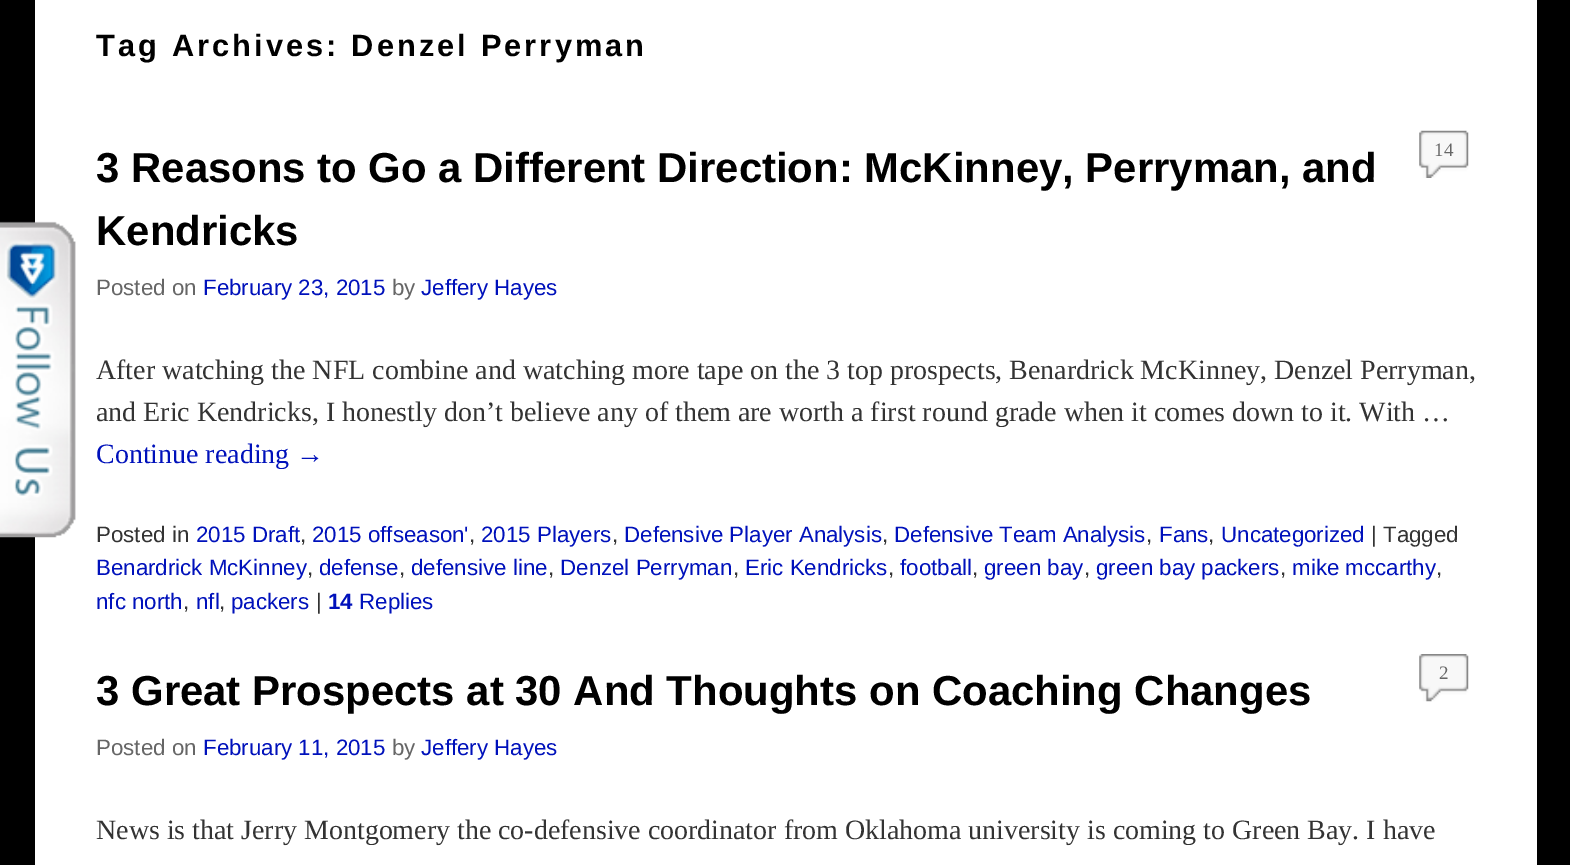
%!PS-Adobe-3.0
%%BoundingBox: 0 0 1570 865
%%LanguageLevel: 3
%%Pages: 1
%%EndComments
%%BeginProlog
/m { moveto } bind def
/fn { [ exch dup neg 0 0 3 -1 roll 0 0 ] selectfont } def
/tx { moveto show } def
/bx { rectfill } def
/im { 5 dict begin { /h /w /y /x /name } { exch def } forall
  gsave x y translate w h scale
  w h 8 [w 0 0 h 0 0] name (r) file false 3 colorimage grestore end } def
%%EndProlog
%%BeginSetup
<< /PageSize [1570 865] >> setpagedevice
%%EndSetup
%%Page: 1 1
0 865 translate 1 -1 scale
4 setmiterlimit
0 setgray
0 0 1570 865 bx
1 setgray
35 0 1502 865 bx
(image0.raw) 0 221 76 317 im
/LiberationSans-Bold 30.75 fn
0 setgray
96 56 m 3.1 0 (Tag Archives: Denzel Perryman) ashow
(image1.raw) 1419 130 50 48 im
/LiberationSerif-Regular 19 fn
0.4 setgray
(14) 1434 156 tx
/LiberationSans-Bold 41.9 fn
0 setgray
(3 Reasons to Go a Different Direction: McKinney, Perryman, and) 96 182 tx
(Kendricks) 96 245 tx
/LiberationSans-Regular 22.3 fn
0.4 setgray
(Posted on) 96 295 tx
0 0.067 0.733 setrgbcolor
(February 23, 2015) 203 295 tx
0.4 setgray
(by) 392 295 tx
0 0.067 0.733 setrgbcolor
(Jeffery Hayes) 421 295 tx
/LiberationSerif-Regular 27.95 fn
0.2 setgray
(After watching the NFL combine and watching more tape on the 3 top prospects, Benardrick McKinney, Denzel Perryman,) 96 379 tx
(and Eric Kendricks, I honestly don’t believe any of them are worth a first round grade when it comes down to it. With …) 96 421 tx
0 0.067 0.733 setrgbcolor
(Continue reading →) 96 463 tx
/LiberationSans-Regular 22.3 fn
0.2 setgray
(Posted in) 96 542 tx
0 0.067 0.733 setrgbcolor
(2015 Draft) 196 542 tx
0.2 setgray
(,) 300 542 tx
0 0.067 0.733 setrgbcolor
(2015 offseason') 312 542 tx
0.2 setgray
(,) 469 542 tx
0 0.067 0.733 setrgbcolor
(2015 Players) 481 542 tx
0.2 setgray
(,) 612 542 tx
0 0.067 0.733 setrgbcolor
(Defensive Player Analysis) 624 542 tx
0.2 setgray
(,) 882 542 tx
0 0.067 0.733 setrgbcolor
(Defensive Team Analysis) 894 542 tx
0.2 setgray
(,) 1146 542 tx
0 0.067 0.733 setrgbcolor
(Fans) 1159 542 tx
0.2 setgray
(,) 1208 542 tx
0 0.067 0.733 setrgbcolor
(Uncategorized) 1221 542 tx
0.2 setgray
(| Tagged) 1371 542 tx
0 0.067 0.733 setrgbcolor
(Benardrick McKinney) 96 575 tx
0.2 setgray
(,) 307 575 tx
0 0.067 0.733 setrgbcolor
(defense) 319 575 tx
0.2 setgray
(,) 399 575 tx
0 0.067 0.733 setrgbcolor
(defensive line) 411 575 tx
0.2 setgray
(,) 548 575 tx
0 0.067 0.733 setrgbcolor
(Denzel Perryman) 560 575 tx
0.2 setgray
(,) 733 575 tx
0 0.067 0.733 setrgbcolor
(Eric Kendricks) 745 575 tx
0.2 setgray
(,) 888 575 tx
0 0.067 0.733 setrgbcolor
(football) 900 575 tx
0.2 setgray
(,) 972 575 tx
0 0.067 0.733 setrgbcolor
(green bay) 984 575 tx
0.2 setgray
(,) 1084 575 tx
0 0.067 0.733 setrgbcolor
(green bay packers) 1096 575 tx
0.2 setgray
(,) 1280 575 tx
0 0.067 0.733 setrgbcolor
(mike mccarthy) 1292 575 tx
0.2 setgray
(,) 1436 575 tx
0 0.067 0.733 setrgbcolor
(nfc north) 96 609 tx
0.2 setgray
(,) 183 609 tx
0 0.067 0.733 setrgbcolor
(nfl) 196 609 tx
0.2 setgray
(,) 219 609 tx
0 0.067 0.733 setrgbcolor
(packers) 231 609 tx
0.2 setgray
(|) 316 609 tx
/LiberationSans-Bold 22.3 fn
0 0.067 0.733 setrgbcolor
(14) 328 609 tx
/LiberationSans-Regular 22.3 fn
(Replies) 359 609 tx
(image2.raw) 1419 654 50 48 im
/LiberationSerif-Regular 19 fn
0.4 setgray
(2) 1439 679 tx
/LiberationSans-Bold 41.9 fn
0 setgray
(3 Great Prospects at 30 And Thoughts on Coaching Changes) 96 705 tx
/LiberationSans-Regular 22.3 fn
0.4 setgray
(Posted on) 96 755 tx
0 0.067 0.733 setrgbcolor
(February 11, 2015) 203 755 tx
0.4 setgray
(by) 392 755 tx
0 0.067 0.733 setrgbcolor
(Jeffery Hayes) 421 755 tx
/LiberationSerif-Regular 27.95 fn
0.2 setgray
(News is that Jerry Montgomery the co-defensive coordinator from Oklahoma university is coming to Green Bay. I have) 96 839 tx
showpage
%%EOF
